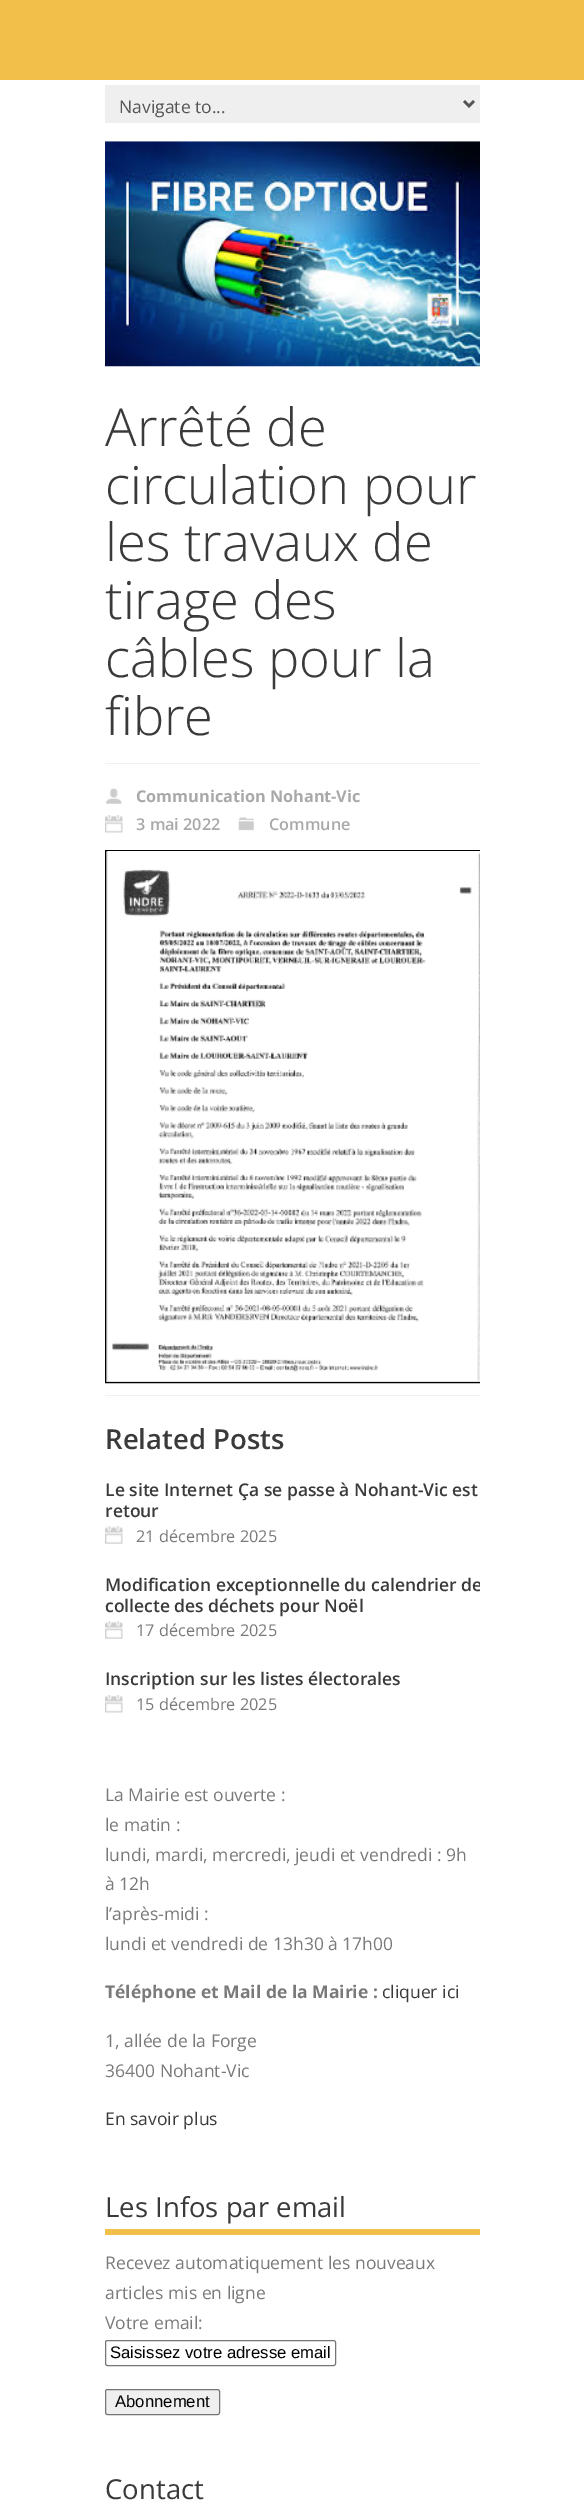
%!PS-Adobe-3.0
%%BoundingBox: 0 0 584 2510
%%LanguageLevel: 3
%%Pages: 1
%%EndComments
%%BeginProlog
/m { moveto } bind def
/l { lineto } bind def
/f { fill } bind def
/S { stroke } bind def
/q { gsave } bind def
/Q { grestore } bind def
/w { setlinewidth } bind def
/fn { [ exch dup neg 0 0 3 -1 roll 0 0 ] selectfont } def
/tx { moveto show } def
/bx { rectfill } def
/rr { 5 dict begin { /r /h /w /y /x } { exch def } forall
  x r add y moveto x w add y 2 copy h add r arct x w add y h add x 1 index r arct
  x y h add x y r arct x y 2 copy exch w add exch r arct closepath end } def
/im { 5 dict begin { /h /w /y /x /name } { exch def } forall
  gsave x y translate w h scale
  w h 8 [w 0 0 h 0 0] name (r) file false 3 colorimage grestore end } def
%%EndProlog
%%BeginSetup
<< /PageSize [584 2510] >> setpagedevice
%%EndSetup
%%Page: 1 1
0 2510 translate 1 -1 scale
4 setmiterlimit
1 setgray
0 0 584 2510 bx
0.949 0.749 0.29 setrgbcolor
0 0 584 80 bx
0.937 setgray
105 85 375 38 bx
0.333 setgray
2.5 w
464 101 m 469 106 l 474 101 l S
/OpenSans-Regular 17.5 fn
(Navigate to...) 119 113 tx
(image0.raw) 105 141 375 226 im
0.941 setgray
105 763 375 1 bx
/OpenSans-Light 52.5 fn
0.227 setgray
(Arrêté de) 105 446 tx
(circulation pour) 105 504 tx
(les travaux de) 105 561 tx
(tirage des) 105 619 tx
(câbles pour la) 105 677 tx
(fibre) 105 735 tx
0.941 setgray
105 1395 375 1 bx
(image1.raw) 106 788 16 16 im
/OpenSans-Bold 16.25 fn
0.663 setgray
(Communication Nohant-Vic) 136 802 tx
(image2.raw) 105 815 18 18 im
/OpenSans-SemiBold 16.25 fn
(3 mai 2022) 136 830 tx
(image3.raw) 238 817 16 14 im
(Commune) 269 830 tx
0.827 setgray
106 851 374 531 bx
q
105 783 375 612 rectclip
0 setgray
1 w
105.5 850.5 377 532 rectstroke
Q
(image4.raw) 107 851 373 531 im
/OpenSans-SemiBold 27.5 fn
0.227 setgray
(Related Posts) 105 1449 tx
/OpenSans-SemiBold 17.5 fn
(Le site Internet Ça se passe à Nohant-Vic est) 105 1496 tx
(retour) 105 1517 tx
(image5.raw) 105 1526 18 18 im
/OpenSans-Regular 16.25 fn
0.478 setgray
(21 décembre 2025) 136 1542 tx
q
105 1480 375 263 rectclip
/OpenSans-SemiBold 17.5 fn
0.227 setgray
(Modification exceptionnelle du calendrier de) 105 1591 tx
Q
/OpenSans-SemiBold 17.5 fn
0.227 setgray
(collecte des déchets pour Noël) 105 1612 tx
(image6.raw) 105 1621 18 18 im
/OpenSans-Regular 16.25 fn
0.478 setgray
(17 décembre 2025) 136 1636 tx
/OpenSans-SemiBold 17.5 fn
0.227 setgray
(Inscription sur les listes électorales) 105 1685 tx
(image2.raw) 105 1695 18 18 im
/OpenSans-Regular 16.25 fn
0.478 setgray
(15 décembre 2025) 136 1710 tx
/OpenSans-Regular 17.5 fn
(La Mairie est ouverte :) 105 1801 tx
(le matin :) 105 1831 tx
(lundi, mardi, mercredi, jeudi et vendredi : 9h) 105 1861 tx
(à 12h) 105 1890 tx
(l’après-midi :) 105 1920 tx
(lundi et vendredi de 13h30 à 17h00) 105 1950 tx
/OpenSans-Bold 17.5 fn
(Téléphone et Mail de la Mairie :) 105 1998 tx
/OpenSans-Regular 17.5 fn
0.227 setgray
(cliquer ici) 382 1998 tx
0.478 setgray
(1, allée de la Forge) 105 2047 tx
(36400 Nohant-Vic) 105 2077 tx
0.227 setgray
(En savoir plus) 105 2125 tx
0.949 0.749 0.29 setrgbcolor
105 2229 375 6 bx
/OpenSans-Regular 27.5 fn
0.227 setgray
(Les Infos par email) 105 2217 tx
/OpenSans-Regular 17.5 fn
0.478 setgray
(Recevez automatiquement les nouveaux) 105 2269 tx
(articles mis en ligne) 105 2299 tx
(Votre email:) 105 2329 tx
0.463 setgray
1 w
105.5 2340.5 230 25 2 rr S
/LiberationSans-Regular 16.7 fn
0 setgray
(Saisissez votre adresse email) 110 2358 tx
0.937 setgray
105.5 2389.5 114 25 2 rr q f Q
0.463 setgray
S
0 setgray
(Abonnement) 115 2407 tx
/OpenSans-Regular 27.5 fn
0.227 setgray
(Contact) 105 2499 tx
showpage
%%EOF
